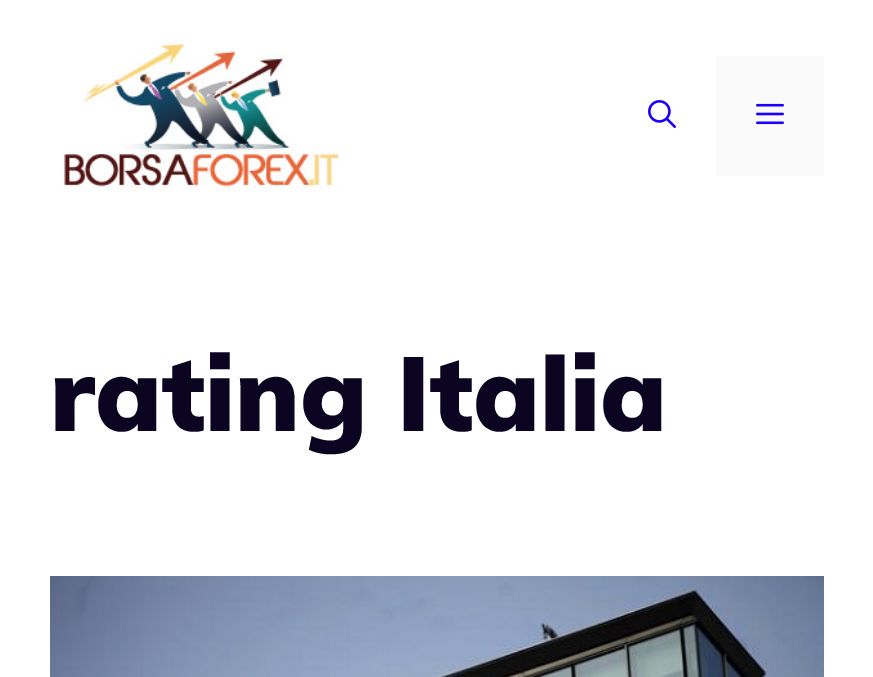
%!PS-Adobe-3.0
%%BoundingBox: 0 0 873 677
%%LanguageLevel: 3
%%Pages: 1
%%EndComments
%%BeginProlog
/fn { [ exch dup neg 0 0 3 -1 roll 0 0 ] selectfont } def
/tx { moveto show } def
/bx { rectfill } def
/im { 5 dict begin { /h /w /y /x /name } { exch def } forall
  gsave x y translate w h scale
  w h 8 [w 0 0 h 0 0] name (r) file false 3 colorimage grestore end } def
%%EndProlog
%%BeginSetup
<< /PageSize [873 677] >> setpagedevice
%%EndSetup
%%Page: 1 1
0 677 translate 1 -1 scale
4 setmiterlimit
1 setgray
0 0 873 677 bx
(image0.raw) 61 40 278 150 im
(image1.raw) 648 100 28 28 im
0.98 setgray
716 56 108 120 bx
(image2.raw) 756 103 28 22 im
/Muli-Black 104 fn
0.043 0.02 0.129 setrgbcolor
(rating Italia) 50 431 tx
(image3.raw) 50 576 774 101 im
showpage
%%EOF
